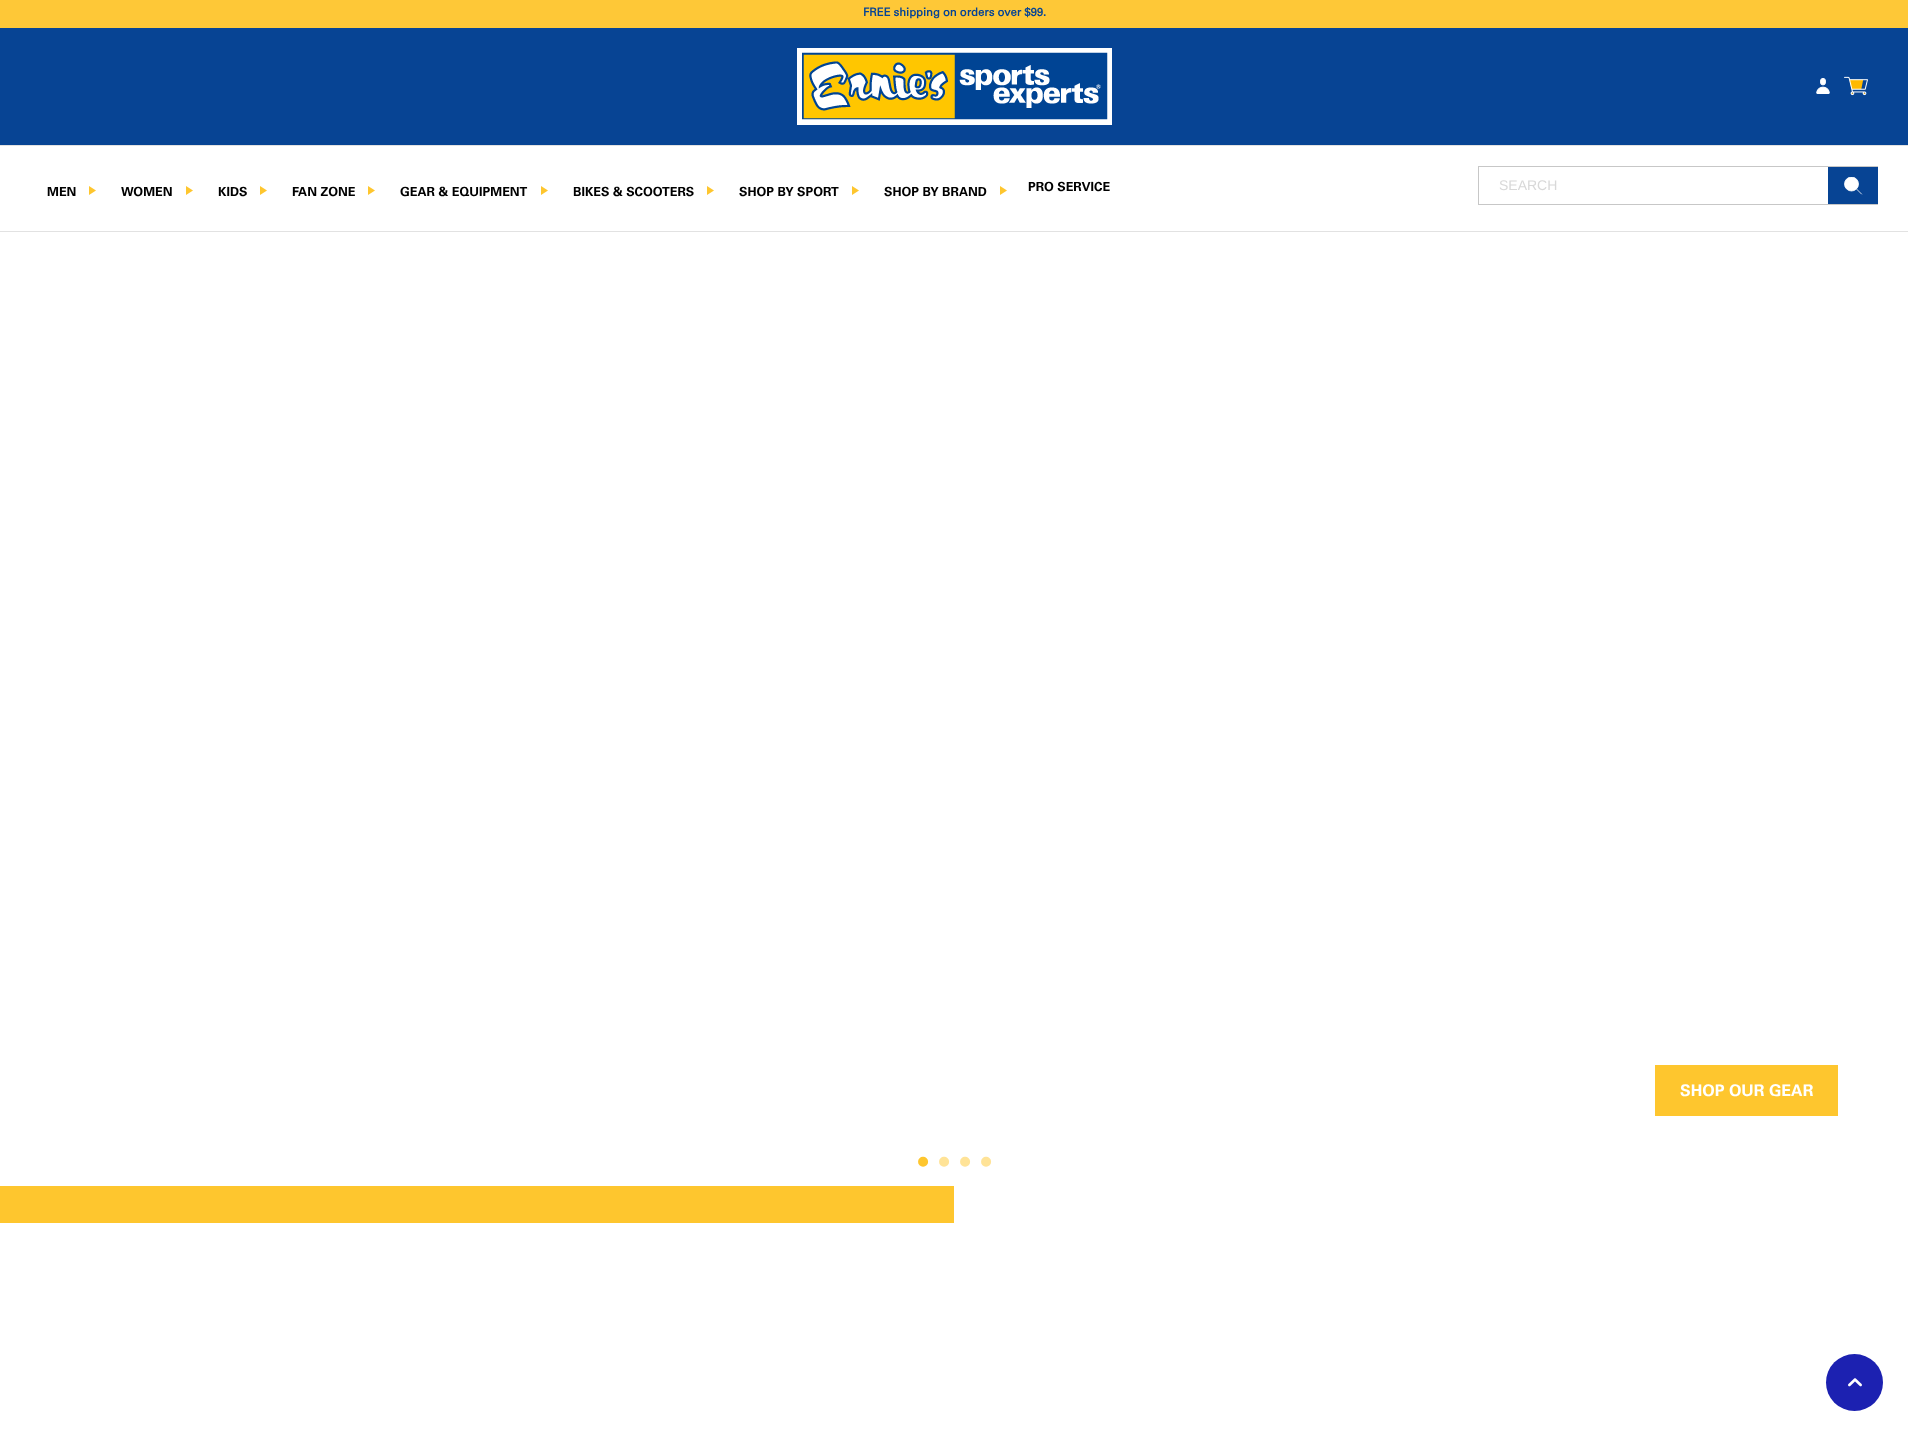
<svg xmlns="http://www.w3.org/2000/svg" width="1908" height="1446">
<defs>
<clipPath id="clip1"><rect x="1844" y="177" width="18" height="18"/></clipPath>
</defs>
<rect width="100%" height="100%" fill="#fff"/>
<rect width="1908" height="28" fill="#fec837"/>
<text x="863" y="16" style="font-family:'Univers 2';font-size:11.25px;font-weight:bold;fill:#074494">FREE shipping on orders over $99.</text>
<rect y="28" width="1908" height="117" fill="#074494"/>
<rect y="145" width="1908" height="1" fill="#e2e2e2"/>
<image x="797" y="48" width="315" height="77" href="media/1.png"/>
<image x="1816" y="78" width="14" height="16" href="media/2.png"/>
<image x="1844" y="76" width="24" height="20" href="media/3.png"/>
<rect y="231" width="1908" height="1" fill="#e2e2e2"/>
<text x="47" y="196" style="font-family:Univers;font-size:12.6px;font-weight:bold;fill:#000">MEN</text>
<path d="M96 190.5l-7 4.5v-9z" fill="#fec62e"/>
<text x="121" y="196" style="font-family:Univers;font-size:12.6px;font-weight:bold;fill:#000">WOMEN</text>
<path d="M193 190.5l-7 4.5v-9z" fill="#fec62e"/>
<text x="218" y="196" style="font-family:Univers;font-size:12.6px;font-weight:bold;fill:#000">KIDS</text>
<path d="M267 190.5l-7 4.5v-9z" fill="#fec62e"/>
<text x="292" y="196" style="font-family:Univers;font-size:12.6px;font-weight:bold;fill:#000">FAN ZONE</text>
<path d="M375 190.5l-7 4.5v-9z" fill="#fec62e"/>
<text x="400" y="196" style="font-family:Univers;font-size:12.6px;font-weight:bold;fill:#000">GEAR &amp; EQUIPMENT</text>
<path d="M548 190.5l-7 4.5v-9z" fill="#fec62e"/>
<text x="573" y="196" style="font-family:Univers;font-size:12.6px;font-weight:bold;fill:#000">BIKES &amp; SCOOTERS</text>
<path d="M714 190.5l-7 4.5v-9z" fill="#fec62e"/>
<text x="739" y="196" style="font-family:Univers;font-size:12.6px;font-weight:bold;fill:#000">SHOP BY SPORT</text>
<path d="M859 190.5l-7 4.5v-9z" fill="#fec62e"/>
<text x="884" y="196" style="font-family:Univers;font-size:12.6px;font-weight:bold;fill:#000">SHOP BY BRAND</text>
<path d="M1007 190.5l-7 4.5v-9z" fill="#fec62e"/>
<text x="1028" y="191" style="font-family:Univers;font-size:12.6px;font-weight:bold;fill:#000">PRO SERVICE</text>
<rect x="1478.5" y="166.5" width="399" height="38" fill="none" stroke="#c7c7c7"/>
<text x="1499" y="190" style="font-family:Liberation Sans;font-size:14px;fill:#d8d8d8">SEARCH</text>
<rect x="1828" y="167" width="50" height="37" fill="#074494"/>
<circle cx="1851.5" cy="184" r="7" fill="#fff"/>
<g clip-path="url(#clip1)">
<circle cx="1851.5" cy="184" r="7" fill="none" stroke="#fff" stroke-width="0.8"/>
</g>
<path d="M1861.5 194l-6-6" fill="none" stroke="#fff" stroke-width="0.8" stroke-linecap="round" stroke-linejoin="round"/>
<rect x="1655" y="1065" width="183" height="51" fill="#fec62e"/>
<text x="1680" y="1096" style="font-family:Univers;font-size:16px;font-weight:bold;fill:#fff">SHOP OUR GEAR</text>
<text x="912" y="1174" style="font-family:Liberation Mono;font-size:37px;fill:#fec62e">•</text>
<text x="933" y="1174" style="font-family:Liberation Mono;font-size:37px;fill:#ffe397">•</text>
<text x="954" y="1174" style="font-family:Liberation Mono;font-size:37px;fill:#ffe397">•</text>
<text x="975" y="1174" style="font-family:Liberation Mono;font-size:37px;fill:#ffe397">•</text>
<rect y="1186" width="954" height="37" fill="#fec62e"/>
<circle cx="1854.5" cy="1382.5" r="28.5" fill="#1c21b1"/>
<image x="1848" y="1378" width="14" height="9" href="media/4.png"/>
</svg>
